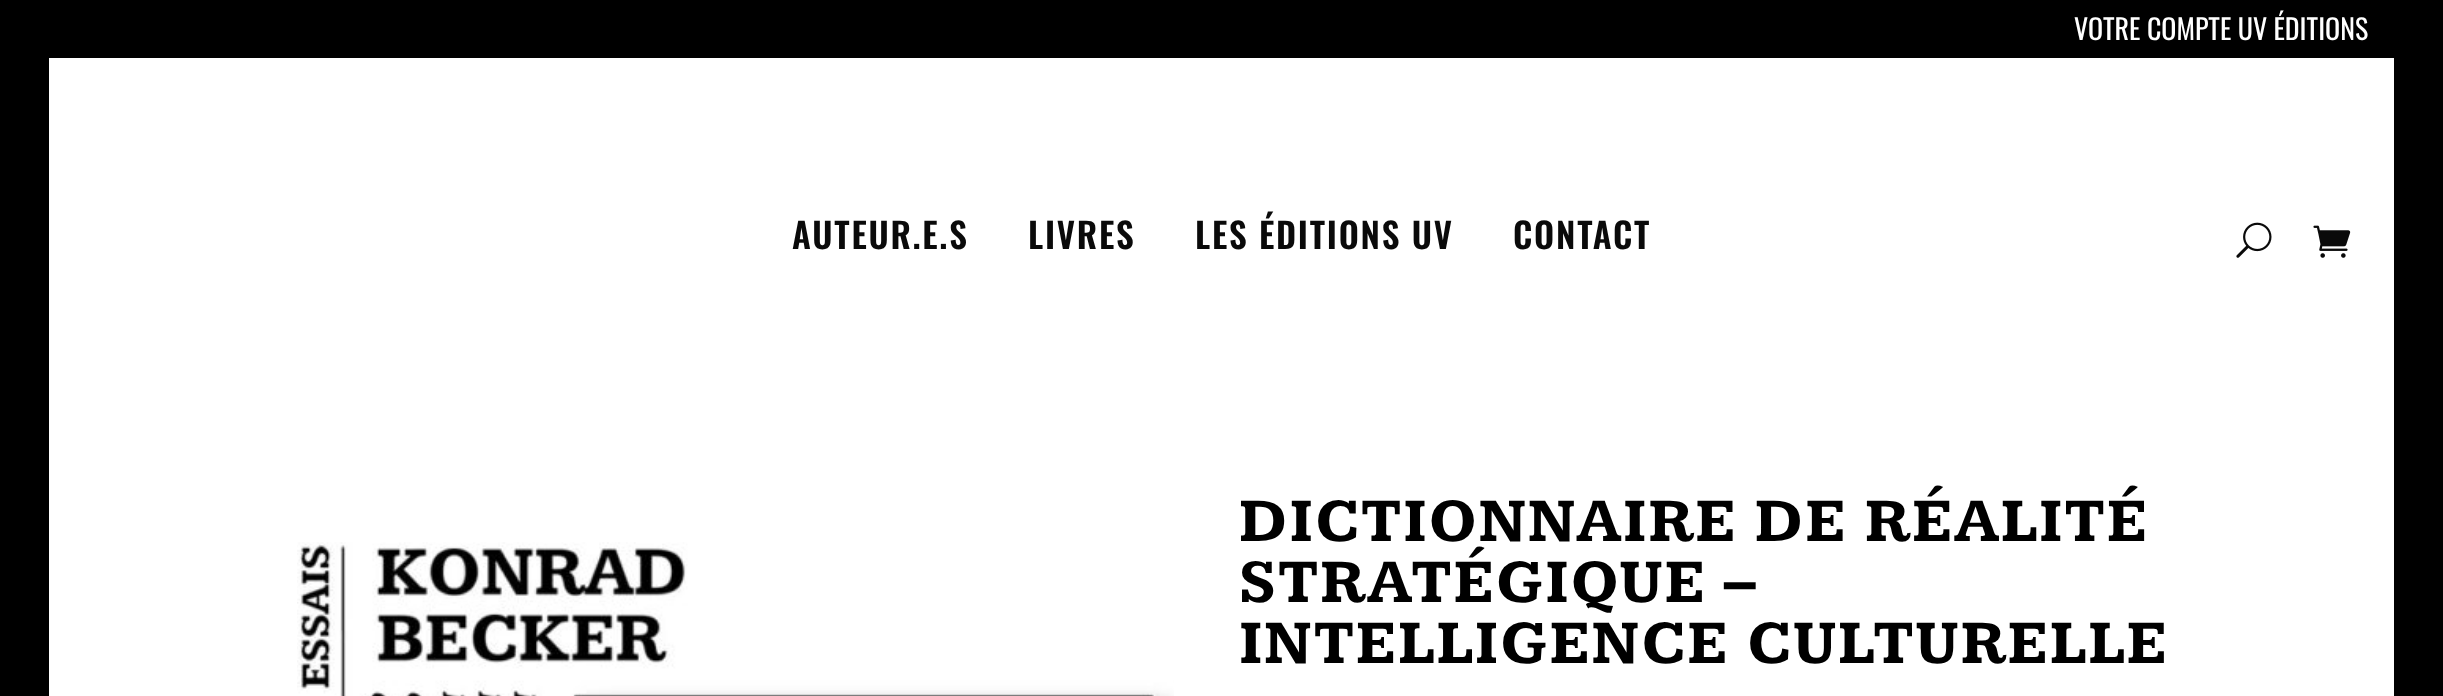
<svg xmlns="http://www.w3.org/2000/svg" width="2443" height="696">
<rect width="100%" height="100%" fill="#fff"/>
<rect x="49" width="2345" height="58" fill="#000"/>
<text x="2074" y="40" style="font-family:Oswald;font-size:28px;fill:#fff">VOTRE COMPTE UV ÉDITIONS</text>
<text x="792" y="249" style="font-family:Oswald;font-size:35px;font-weight:600;letter-spacing:1.75px;fill:#0a0a0a">AUTEUR.E.S</text>
<text x="1028" y="249" style="font-family:Oswald;font-size:35px;font-weight:600;letter-spacing:1.75px;fill:#0a0a0a">LIVRES</text>
<text x="1195" y="249" style="font-family:Oswald;font-size:35px;font-weight:600;letter-spacing:1.75px;fill:#0a0a0a">LES ÉDITIONS UV</text>
<text x="1513" y="249" style="font-family:Oswald;font-size:35px;font-weight:600;letter-spacing:1.75px;fill:#0a0a0a">CONTACT</text>
<image x="2236" y="222" width="36" height="36" href="media/1.png"/>
<image x="2313" y="225" width="38" height="33" href="media/2.png"/>
<rect width="49" height="696" fill="#000"/>
<image x="297" y="542" width="877" height="154" href="media/3.png"/>
<text x="1239" y="541" style="font-family:Kameron;font-size:63px;font-weight:bold;letter-spacing:1.75px;fill:#000">DICTIONNAIRE DE RÉALITÉ</text>
<text x="1239" y="602" style="font-family:Kameron;font-size:63px;font-weight:bold;letter-spacing:1.75px;fill:#000">STRATÉGIQUE –</text>
<text x="1239" y="663" style="font-family:Kameron;font-size:63px;font-weight:bold;letter-spacing:1.75px;fill:#000">INTELLIGENCE CULTURELLE</text>
<rect x="2394" width="49" height="696" fill="#000"/>
</svg>
